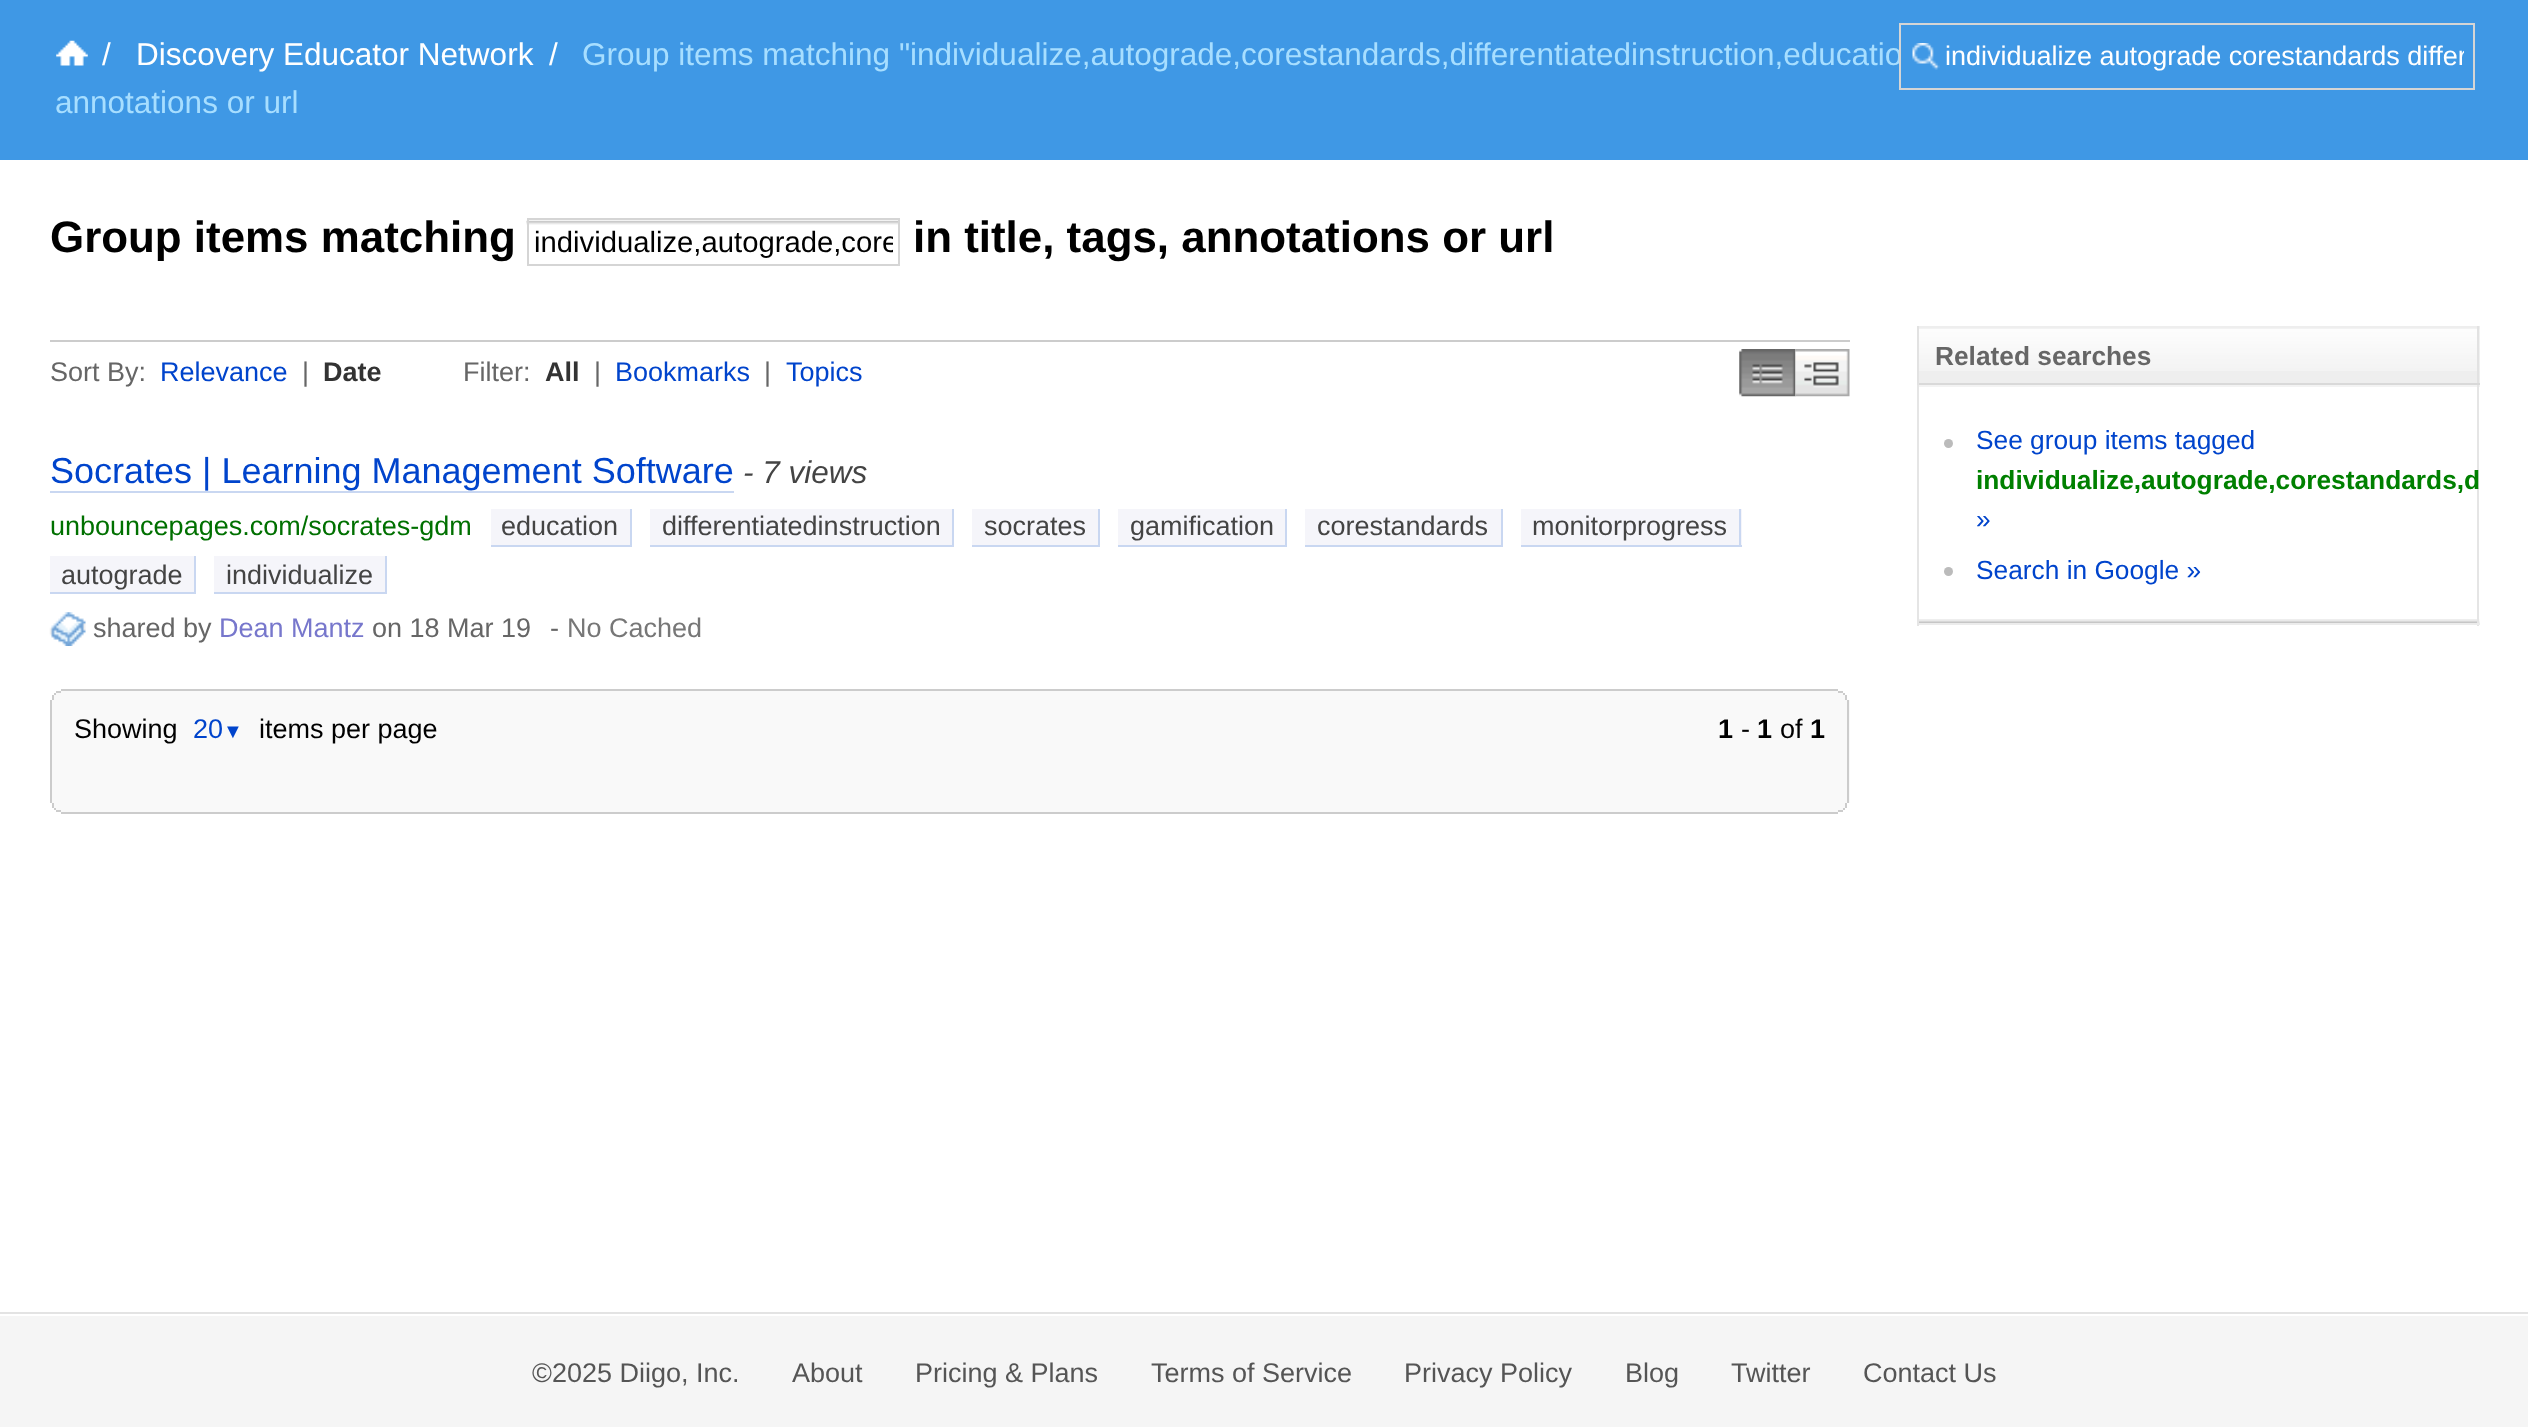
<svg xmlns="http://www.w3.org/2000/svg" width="2528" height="1428">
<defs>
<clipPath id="clip1"><rect x="1946" y="41" width="518" height="31"/></clipPath>
<clipPath id="clip2"><rect x="533" y="225" width="360" height="34"/></clipPath>
</defs>
<rect width="100%" height="100%" fill="#fff"/>
<rect width="2528" height="160" fill="#3f98e5"/>
<image x="56" y="40" width="32" height="26" href="media/1.png"/>
<text x="102" y="65" style="font-family:Liberation Sans;font-size:31.5px;fill:#fff">/</text>
<text x="136" y="65" style="font-family:Liberation Sans;font-size:31.5px;fill:#fff">Discovery Educator Network</text>
<text x="549" y="65" style="font-family:Liberation Sans;font-size:31.5px;fill:#fff">/</text>
<text x="582" y="65" style="font-family:Liberation Sans;font-size:31.5px;fill:#a7deff">Group items matching "individualize,autograde,corestandards,differentiatedinstruction,educatio</text>
<rect x="1901" y="55" width="1" height="3" fill="#3f98e5"/>
<image x="1912" y="43" width="28" height="27" href="media/2.png"/>
<rect x="1900" y="24" width="574" height="65" fill="none" stroke="#d5d5d5" stroke-width="2"/>
<g clip-path="url(#clip1)">
<text x="1945" y="65" style="font-family:Liberation Sans;font-size:27px;fill:#fff">individualize autograde corestandards differ</text>
</g>
<text x="55" y="113" style="font-family:Liberation Sans;font-size:31.5px;fill:#a7deff">annotations or url</text>
<text x="50" y="252" style="font-family:Liberation Sans;font-size:43.9px;font-weight:bold;fill:#000">Group items matching</text>
<image x="526" y="220" width="372" height="5" href="media/3.png"/>
<rect x="528" y="219" width="371" height="46" fill="none" stroke="#d5d5d5" stroke-width="2"/>
<g clip-path="url(#clip2)">
<text x="534" y="252" style="font-family:Liberation Sans;font-size:29.25px;fill:#000">individualize,autograde,core</text>
</g>
<text x="913" y="252" style="font-family:Liberation Sans;font-size:43.9px;font-weight:bold;fill:#000">in title, tags, annotations or url</text>
<rect x="50" y="340" width="1800" height="2" fill="#ccc"/>
<text x="50" y="381" style="font-family:Liberation Sans;font-size:27px;fill:#666">Sort By:</text>
<text x="160" y="381" style="font-family:Liberation Sans;font-size:27px;fill:#04c">Relevance</text>
<text x="302" y="381" style="font-family:Liberation Sans;font-size:27px;fill:#666">|</text>
<text x="323" y="381" style="font-family:Liberation Sans;font-size:27px;font-weight:bold;fill:#333">Date</text>
<text x="463" y="381" style="font-family:Liberation Sans;font-size:27px;fill:#666">Filter:</text>
<text x="545" y="381" style="font-family:Liberation Sans;font-size:27px;font-weight:bold;fill:#333">All</text>
<text x="594" y="381" style="font-family:Liberation Sans;font-size:27px;fill:#666">|</text>
<text x="615" y="381" style="font-family:Liberation Sans;font-size:27px;fill:#04c">Bookmarks</text>
<text x="764" y="381" style="font-family:Liberation Sans;font-size:27px;fill:#666">|</text>
<text x="786" y="381" style="font-family:Liberation Sans;font-size:27px;fill:#04c">Topics</text>
<image x="1739" y="349" width="57" height="48" href="media/4.png"/>
<image x="1795" y="349" width="55" height="48" href="media/5.png"/>
<text x="50" y="483" style="font-family:Liberation Sans;font-size:36px;fill:#04c">Socrates | Learning Management Software</text>
<rect x="50" y="491" width="684" height="2" fill="#c9d7f1"/>
<text x="743" y="483" style="font-family:Liberation Sans;font-size:31.5px;font-style:italic;fill:#444">- 7 views</text>
<text x="50" y="535" style="font-family:Liberation Sans;font-size:27px;fill:#007000">unbouncepages.com/socrates-gdm</text>
<rect x="491" y="509" width="139" height="36" fill="#f5f5fa"/>
<text x="501" y="535" style="font-family:Liberation Sans;font-size:27px;fill:#444">education</text>
<rect x="630" y="509" width="2" height="38" fill="#c9d7f1"/>
<rect x="491" y="545" width="141" height="2" fill="#c9d7f1"/>
<rect x="650" y="509" width="302" height="36" fill="#f5f5fa"/>
<text x="662" y="535" style="font-family:Liberation Sans;font-size:27px;fill:#444">differentiatedinstruction</text>
<rect x="952" y="509" width="2" height="38" fill="#c9d7f1"/>
<rect x="650" y="545" width="304" height="2" fill="#c9d7f1"/>
<rect x="972" y="509" width="126" height="36" fill="#f5f5fa"/>
<text x="984" y="535" style="font-family:Liberation Sans;font-size:27px;fill:#444">socrates</text>
<rect x="1098" y="509" width="2" height="38" fill="#c9d7f1"/>
<rect x="972" y="545" width="128" height="2" fill="#c9d7f1"/>
<rect x="1118" y="509" width="167" height="36" fill="#f5f5fa"/>
<text x="1130" y="535" style="font-family:Liberation Sans;font-size:27px;fill:#444">gamification</text>
<rect x="1285" y="509" width="2" height="38" fill="#c9d7f1"/>
<rect x="1118" y="545" width="169" height="2" fill="#c9d7f1"/>
<rect x="1305" y="509" width="196" height="36" fill="#f5f5fa"/>
<text x="1317" y="535" style="font-family:Liberation Sans;font-size:27px;fill:#444">corestandards</text>
<rect x="1501" y="509" width="2" height="38" fill="#c9d7f1"/>
<rect x="1305" y="545" width="198" height="2" fill="#c9d7f1"/>
<rect x="1521" y="509" width="221" height="36" fill="#f5f5fa"/>
<text x="1532" y="535" style="font-family:Liberation Sans;font-size:27px;fill:#444">monitorprogress</text>
<rect x="1739" y="509" width="2" height="38" fill="#c9d7f1"/>
<rect x="1521" y="545" width="221" height="2" fill="#c9d7f1"/>
<rect x="50" y="556" width="144" height="36" fill="#f5f5fa"/>
<text x="61" y="584" style="font-family:Liberation Sans;font-size:27px;fill:#444">autograde</text>
<rect x="194" y="556" width="2" height="38" fill="#c9d7f1"/>
<rect x="50" y="592" width="146" height="2" fill="#c9d7f1"/>
<rect x="214" y="556" width="171" height="36" fill="#f5f5fa"/>
<text x="226" y="584" style="font-family:Liberation Sans;font-size:27px;fill:#444">individualize</text>
<rect x="385" y="556" width="2" height="38" fill="#c9d7f1"/>
<rect x="214" y="592" width="173" height="2" fill="#c9d7f1"/>
<image x="49" y="612" width="37" height="34" href="media/6.png"/>
<text x="93" y="637" style="font-family:Liberation Sans;font-size:27px;fill:#666">shared by</text>
<text x="219" y="637" style="font-family:Liberation Sans;font-size:27px;fill:#77c">Dean Mantz</text>
<text x="372" y="637" style="font-family:Liberation Sans;font-size:27px;fill:#666">on 18 Mar 19</text>
<text x="550" y="637" style="font-family:Liberation Sans;font-size:27px;fill:#666">-</text>
<text x="567" y="637" style="font-family:Liberation Sans;font-size:27px;fill:#777">No Cached</text>
<rect x="61" y="689" width="1777" height="2" fill="#ccc"/>
<rect x="56" y="691" width="1787" height="2" fill="#f9f9f9"/>
<rect x="1838" y="691" width="5" height="2" fill="#ccc"/>
<rect x="56" y="691" width="5" height="2" fill="#ccc"/>
<rect x="54" y="693" width="1791" height="2" fill="#f9f9f9"/>
<rect x="1843" y="693" width="2" height="2" fill="#ccc"/>
<rect x="54" y="693" width="2" height="2" fill="#ccc"/>
<rect x="52" y="695" width="1795" height="5" fill="#f9f9f9"/>
<rect x="1845" y="695" width="2" height="5" fill="#ccc"/>
<rect x="52" y="695" width="2" height="5" fill="#ccc"/>
<rect x="52" y="700" width="1798" height="103" fill="#f9f9f9"/>
<rect x="1847" y="700" width="2" height="103" fill="#ccc"/>
<rect x="50" y="700" width="2" height="103" fill="#ccc"/>
<text x="74" y="738" style="font-family:Liberation Sans;font-size:27px;fill:#000">Showing</text>
<text x="193" y="738" style="font-family:Liberation Sans;font-size:27px;fill:#04c">20</text>
<text x="223" y="738" style="font-family:Liberation Sans;font-size:20px;font-weight:bold;fill:#04c">▼</text>
<text x="259" y="738" style="font-family:Liberation Sans;font-size:27px;fill:#000">items per page</text>
<text x="1718" y="738" style="font-family:Liberation Sans;font-size:27px;font-weight:bold;fill:#000">1</text>
<text x="1741" y="738" style="font-family:Liberation Sans;font-size:27px;fill:#000">-</text>
<text x="1757" y="738" style="font-family:Liberation Sans;font-size:27px;font-weight:bold;fill:#000">1</text>
<text x="1780" y="738" style="font-family:Liberation Sans;font-size:27px;fill:#000">of</text>
<text x="1810" y="738" style="font-family:Liberation Sans;font-size:27px;font-weight:bold;fill:#000">1</text>
<rect x="52" y="803" width="1795" height="5" fill="#f9f9f9"/>
<rect x="1845" y="803" width="2" height="5" fill="#ccc"/>
<rect x="52" y="803" width="2" height="5" fill="#ccc"/>
<rect x="54" y="808" width="1791" height="2" fill="#f9f9f9"/>
<rect x="1843" y="808" width="2" height="2" fill="#ccc"/>
<rect x="54" y="808" width="2" height="2" fill="#ccc"/>
<rect x="56" y="810" width="1787" height="2" fill="#f9f9f9"/>
<rect x="1838" y="810" width="5" height="2" fill="#ccc"/>
<rect x="56" y="810" width="5" height="2" fill="#ccc"/>
<rect x="61" y="812" width="1777" height="2" fill="#ccc"/>
<rect x="1919" y="326" width="561" height="57" fill="#eee"/>
<image x="1919" y="328" width="561" height="43" href="media/7.png"/>
<rect x="2477" y="326" width="2" height="59" fill="#e2e2e2"/>
<rect x="1917" y="383" width="563" height="2" fill="#d9d9d9"/>
<rect x="1917" y="326" width="2" height="59" fill="#e2e2e2"/>
<text x="1935" y="365" style="font-family:Liberation Sans;font-size:26.3px;font-weight:bold;fill:#666">Related searches</text>
<image x="1919" y="619" width="561" height="4" href="media/8.png"/>
<rect x="1917" y="385" width="563" height="2" fill="#f3f3f3"/>
<rect x="2477" y="385" width="2" height="241" fill="#e5e5e5"/>
<rect x="1917" y="623" width="563" height="2" fill="#ececec"/>
<rect x="1917" y="385" width="2" height="241" fill="#e5e5e5"/>
<circle cx="1948.5" cy="443.5" r="4.5" fill="#bbb"/>
<text x="1976" y="449" style="font-family:Liberation Sans;font-size:26.3px;fill:#04c">See group items tagged</text>
<text x="1976" y="489" style="font-family:Liberation Sans;font-size:26.3px;font-weight:bold;fill:#008000">individualize,autograde,corestandards,d</text>
<text x="1976" y="528" style="font-family:Liberation Sans;font-size:26.3px;fill:#04c">»</text>
<circle cx="1948.5" cy="571.5" r="4.5" fill="#bbb"/>
<text x="1976" y="579" style="font-family:Liberation Sans;font-size:26.3px;fill:#04c">Search in Google »</text>
<rect y="1316" width="2528" height="111" fill="#f5f5f5"/>
<rect y="1312" width="2528" height="2" fill="#e3e3e3"/>
<text x="532" y="1382" style="font-family:Liberation Sans;font-size:27px;fill:#555">©2025 Diigo, Inc.</text>
<text x="792" y="1382" style="font-family:Liberation Sans;font-size:27px;fill:#555">About</text>
<text x="915" y="1382" style="font-family:Liberation Sans;font-size:27px;fill:#555">Pricing &amp; Plans</text>
<text x="1151" y="1382" style="font-family:Liberation Sans;font-size:27px;fill:#555">Terms of Service</text>
<text x="1404" y="1382" style="font-family:Liberation Sans;font-size:27px;fill:#555">Privacy Policy</text>
<text x="1625" y="1382" style="font-family:Liberation Sans;font-size:27px;fill:#555">Blog</text>
<text x="1731" y="1382" style="font-family:Liberation Sans;font-size:27px;fill:#555">Twitter</text>
<text x="1863" y="1382" style="font-family:Liberation Sans;font-size:27px;fill:#555">Contact Us</text>
</svg>
